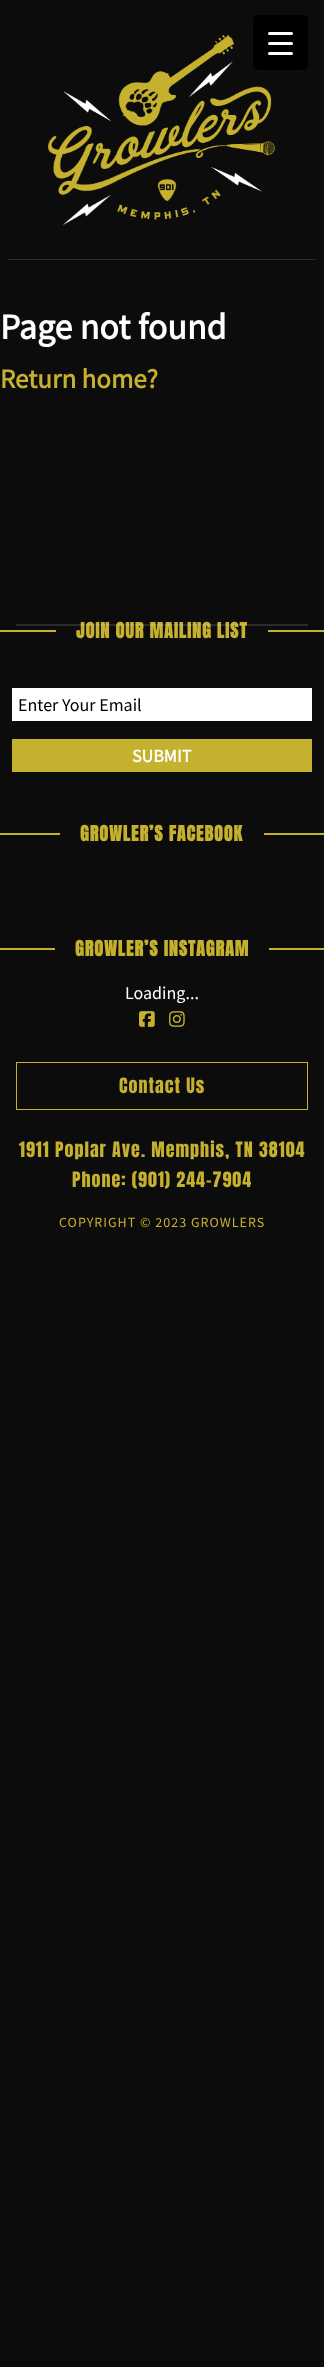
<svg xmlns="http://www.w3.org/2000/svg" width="324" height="2367">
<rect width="100%" height="100%" fill="#0c0c0c"/>
<image x="48" y="34" width="228" height="192" href="media/1.png"/>
<rect x="253" y="15" width="55" height="55" rx="5" fill="#000"/>
<rect x="268" y="42" width="25" height="3" rx="1.5" fill="#fff"/>
<rect x="268" y="32" width="25" height="3" rx="1.5" fill="#fff"/>
<rect x="268" y="52" width="25" height="3" rx="1.5" fill="#fff"/>
<rect x="8" y="259" width="308" height="1" fill="#2c2c2c"/>
<text x="0" y="339" style="font-family:Source Sans Pro;font-size:36px;font-weight:bold;fill:#fff">Page not found</text>
<text x="0" y="388" style="font-family:Source Sans Pro;font-size:27px;font-weight:bold;fill:#c6b12f">Return home?</text>
<rect y="630" width="56" height="2" fill="#c6b12f"/>
<text x="76" y="638" style="font-family:Anton;font-size:18px;font-weight:bold;letter-spacing:1px;fill:#c6b12f">JOIN OUR MAILING LIST</text>
<rect x="268" y="630" width="56" height="2" fill="#c6b12f"/>
<rect x="12" y="688" width="300" height="33" fill="#fff"/>
<text x="18" y="711" style="font-family:Source Sans Pro;font-size:18px;fill:#000">Enter Your Email</text>
<rect x="12" y="739" width="300" height="33" fill="#c6b12f"/>
<text x="132" y="762" style="font-family:Source Sans Pro;font-size:18px;font-weight:bold;fill:#fff">SUBMIT</text>
<rect y="833" width="60" height="2" fill="#c6b12f"/>
<text x="80" y="841" style="font-family:Anton;font-size:18px;font-weight:bold;letter-spacing:1px;fill:#c6b12f">GROWLER’S FACEBOOK</text>
<rect x="264" y="833" width="60" height="2" fill="#c6b12f"/>
<rect y="948" width="55" height="2" fill="#c6b12f"/>
<text x="75" y="956" style="font-family:Anton;font-size:18px;font-weight:bold;letter-spacing:1px;fill:#c6b12f">GROWLER’S INSTAGRAM</text>
<rect x="269" y="948" width="55" height="2" fill="#c6b12f"/>
<text x="125" y="999" style="font-family:Source Sans Pro;font-size:18px;fill:#fff">Loading...</text>
<rect x="16" y="624" width="292" height="2" fill="#ffffff21"/>
<image x="139" y="1011" width="16" height="16" href="media/2.png"/>
<image x="169" y="1011" width="16" height="16" href="media/3.png"/>
<rect x="16.5" y="1062.5" width="291" height="47" fill="none" stroke="#c6b12f"/>
<text x="119" y="1093" style="font-family:Anton;font-size:18px;letter-spacing:1px;fill:#c6b12f">Contact Us</text>
<text x="19" y="1157" style="font-family:Anton;font-size:18px;letter-spacing:1px;fill:#c6b12f">1911 Poplar Ave. Memphis, TN 38104</text>
<text x="72" y="1187" style="font-family:Anton;font-size:18px;letter-spacing:1px;fill:#c6b12f">Phone: (901) 244-7904</text>
<text x="59" y="1227" style="font-family:Source Sans Pro;font-size:14px;letter-spacing:1px;fill:#c6b12f">COPYRIGHT © 2023 GROWLERS</text>
</svg>
